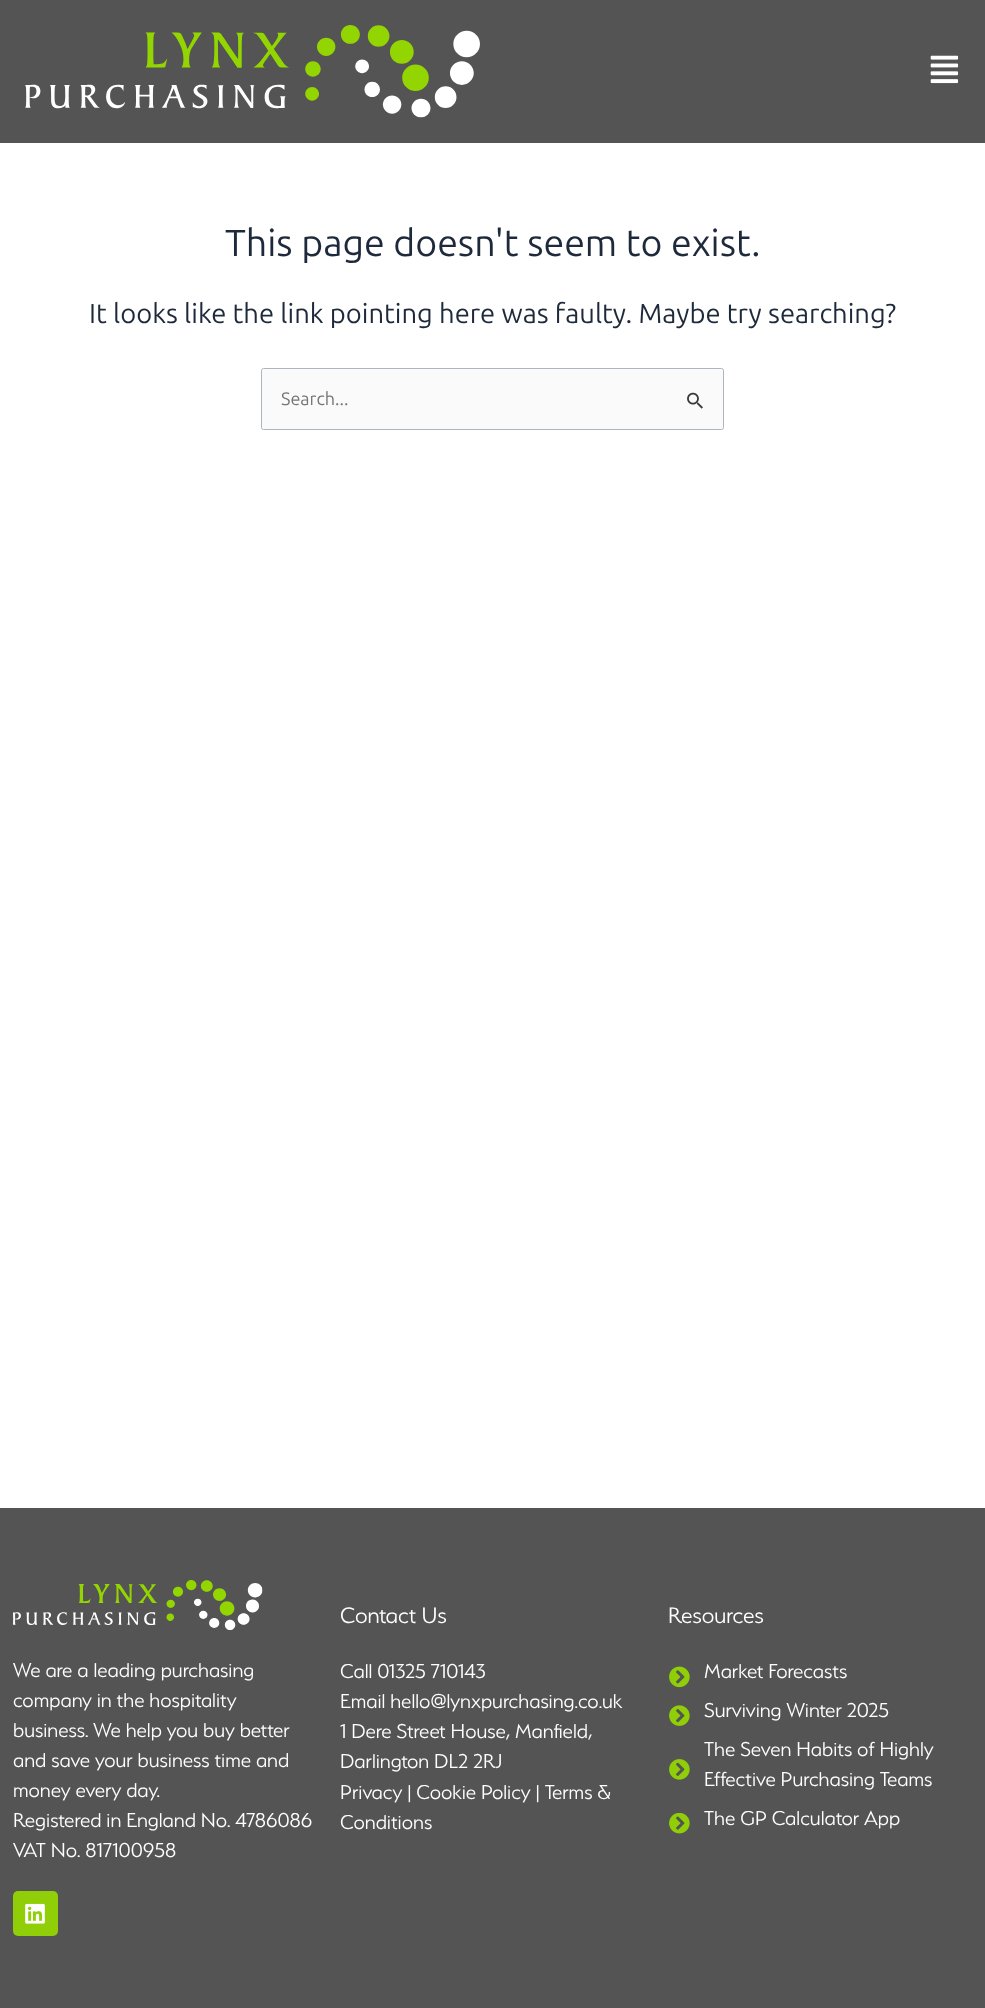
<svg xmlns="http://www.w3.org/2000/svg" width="985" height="2008">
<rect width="100%" height="100%" fill="#fff"/>
<rect width="985" height="143" fill="#555454"/>
<image x="25" y="25" width="455" height="93" href="media/1.png"/>
<image x="930" y="55" width="29" height="29" href="media/2.png"/>
<text x="225" y="256" style="font-family:Ubuntu;font-size:37.5px;fill:#1e293b">This page doesn't seem to exist.</text>
<text x="89" y="323" style="font-family:Ubuntu;font-size:27.35px;fill:#1e293b">It looks like the link pointing here was faulty. Maybe try searching?</text>
<rect x="261.5" y="368.5" width="462" height="61" rx="2" fill="#fafafa" stroke="#adb6be"/>
<text x="281" y="405" style="font-family:Ubuntu;font-size:18px;fill:#757575">Search...</text>
<image x="687" y="392" width="16" height="17" href="media/3.png"/>
<rect y="1508" width="985" height="500" fill="#555454"/>
<image x="13" y="1580" width="250" height="50" href="media/4.png"/>
<text x="13" y="1677" style="font-family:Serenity;font-size:22.5px;font-weight:300;fill:#fff">We are a leading purchasing</text>
<text x="13" y="1707" style="font-family:Serenity;font-size:22.5px;font-weight:300;fill:#fff">company in the hospitality</text>
<text x="13" y="1737" style="font-family:Serenity;font-size:22.5px;font-weight:300;fill:#fff">business. We help you buy better</text>
<text x="13" y="1767" style="font-family:Serenity;font-size:22.5px;font-weight:300;fill:#fff">and save your business time and</text>
<text x="13" y="1797" style="font-family:Serenity;font-size:22.5px;font-weight:300;fill:#fff">money every day.</text>
<text x="13" y="1827" style="font-family:Serenity;font-size:22.5px;font-weight:300;fill:#fff">Registered in England No. 4786086</text>
<text x="13" y="1857" style="font-family:Serenity;font-size:22.5px;font-weight:300;fill:#fff">VAT No. 817100958</text>
<rect x="13" y="1891" width="45" height="45" rx="5" fill="#90ce07"/>
<image x="25" y="1903" width="20" height="21" href="media/5.png"/>
<text x="340" y="1623" style="font-family:Serenity;font-size:25px;font-weight:300;fill:#fff">Contact Us</text>
<text x="340" y="1678" style="font-family:Serenity;font-size:22.5px;font-weight:300;fill:#fff">Call 01325 710143</text>
<text x="340" y="1708" style="font-family:Serenity;font-size:22.5px;font-weight:300;fill:#fff">Email hello@lynxpurchasing.co.uk</text>
<text x="340" y="1738" style="font-family:Serenity;font-size:22.5px;font-weight:300;fill:#fff">1 Dere Street House, Manfield,</text>
<text x="340" y="1768" style="font-family:Serenity;font-size:22.5px;font-weight:300;fill:#fff">Darlington DL2 2RJ</text>
<text x="340" y="1799" style="font-family:Serenity;font-size:22.5px;font-weight:300;fill:#fff">Privacy | Cookie Policy | Terms &amp;</text>
<text x="340" y="1829" style="font-family:Serenity;font-size:22.5px;font-weight:300;fill:#fff">Conditions</text>
<text x="668" y="1623" style="font-family:Serenity;font-size:25px;font-weight:300;fill:#fff">Resources</text>
<image x="669" y="1666" width="21" height="22" href="media/6.png"/>
<text x="704" y="1678" style="font-family:Serenity;font-size:22.5px;font-weight:300;fill:#fff">Market Forecasts</text>
<image x="669" y="1705" width="21" height="21" href="media/7.png"/>
<text x="704" y="1717" style="font-family:Serenity;font-size:22.5px;font-weight:300;fill:#fff">Surviving Winter 2025</text>
<image x="669" y="1759" width="21" height="21" href="media/8.png"/>
<text x="704" y="1756" style="font-family:Serenity;font-size:22.5px;font-weight:300;fill:#fff">The Seven Habits of Highly</text>
<text x="704" y="1786" style="font-family:Serenity;font-size:22.5px;font-weight:300;fill:#fff">Effective Purchasing Teams</text>
<image x="669" y="1813" width="21" height="21" href="media/9.png"/>
<text x="704" y="1825" style="font-family:Serenity;font-size:22.5px;font-weight:300;fill:#fff">The GP Calculator App</text>
</svg>
